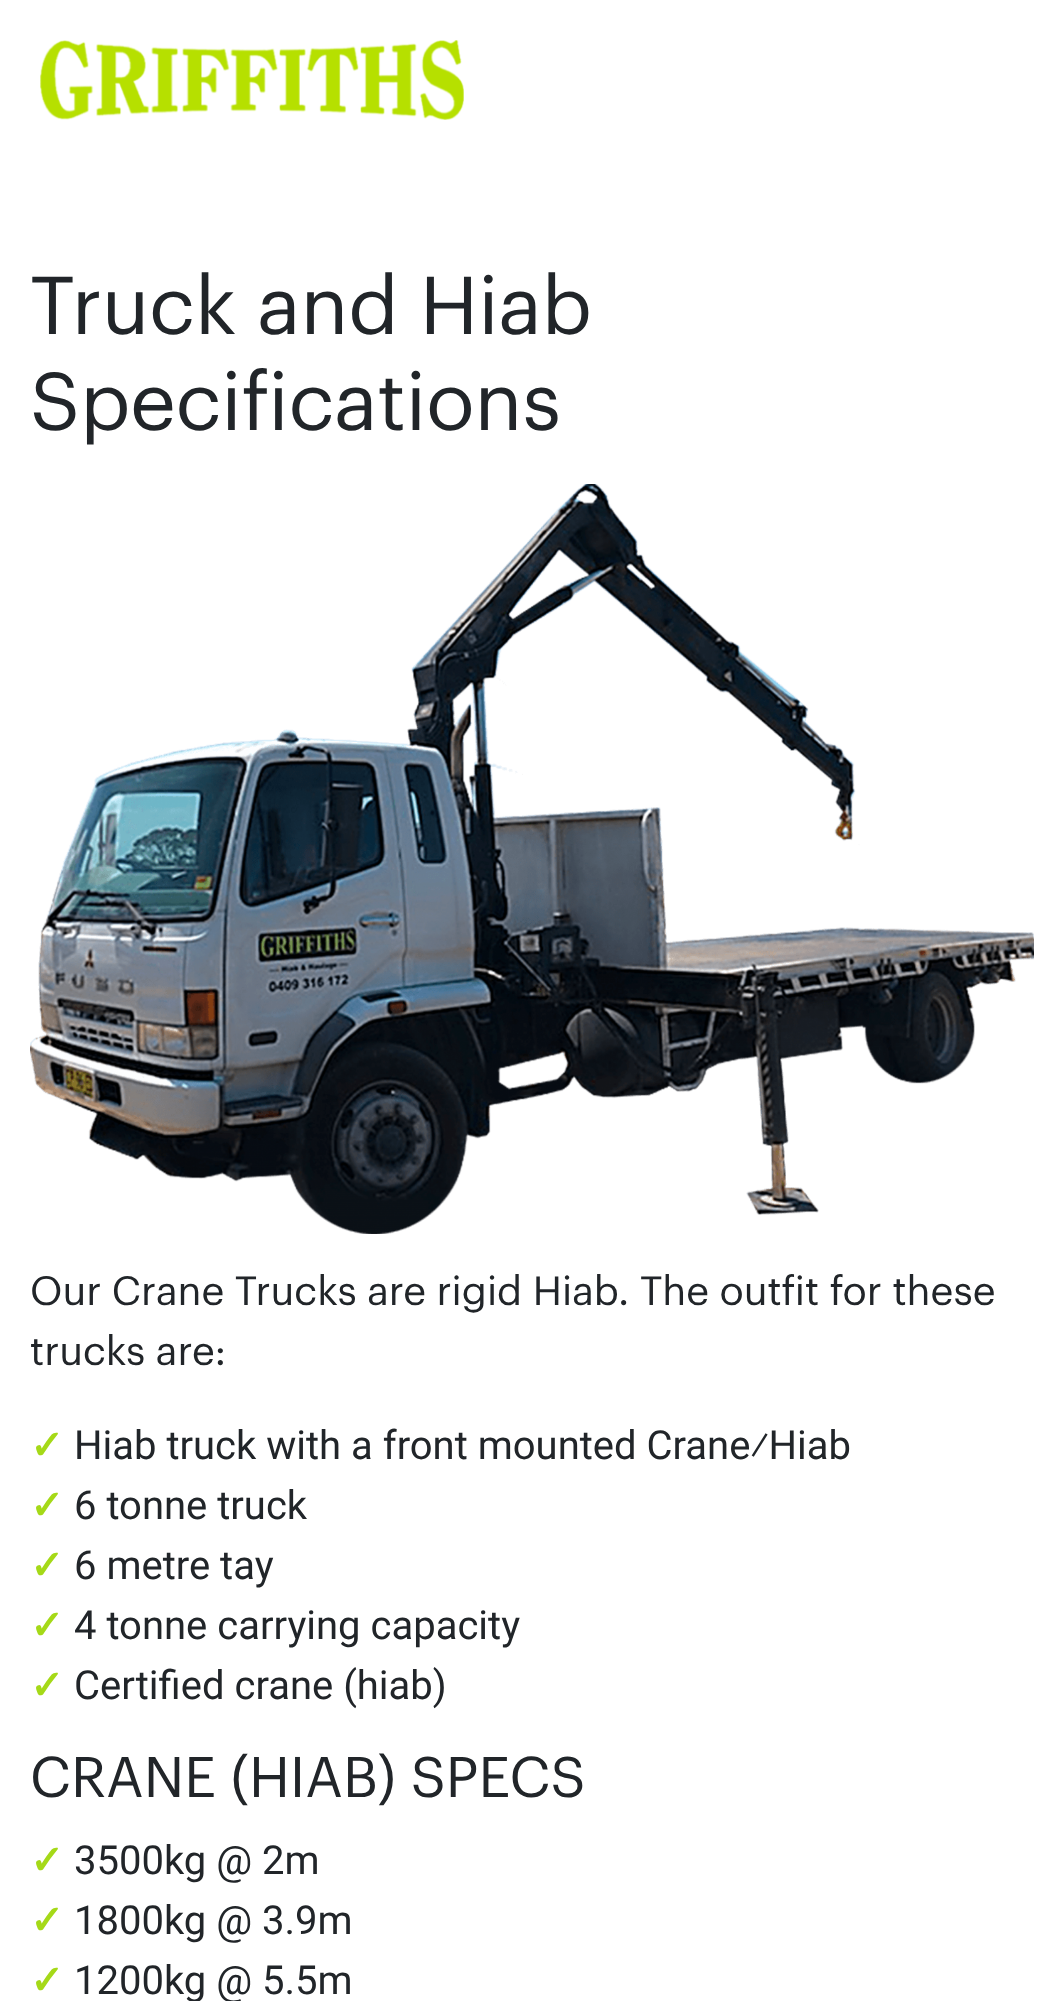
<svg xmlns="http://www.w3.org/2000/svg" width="1064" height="2001">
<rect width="100%" height="100%" fill="#fff"/>
<image x="40" y="40" width="424" height="80" href="media/1.png"/>
<text x="30" y="334" style="font-family:Graphik;font-size:80px;fill:#212529">Truck and Hiab</text>
<text x="30" y="430" style="font-family:Graphik;font-size:80px;fill:#212529">Specifications</text>
<image x="30" y="484" width="1004" height="750" href="media/2.png"/>
<text x="30" y="1305" style="font-family:Graphik;font-size:40px;fill:#212529">Our Crane Trucks are rigid Hiab. The outfit for these</text>
<text x="30" y="1365" style="font-family:Graphik;font-size:40px;fill:#212529">trucks are:</text>
<text x="30" y="1459" style="font-family:DejaVu Sans;font-size:40px;font-weight:bold;fill:#a5d918">✓</text>
<text x="74" y="1459" style="font-family:Roboto;font-size:40px;fill:#212529">Hiab truck with a front mounted Crane⁄Hiab</text>
<text x="30" y="1519" style="font-family:DejaVu Sans;font-size:40px;font-weight:bold;fill:#a5d918">✓</text>
<text x="74" y="1519" style="font-family:Roboto;font-size:40px;fill:#212529">6 tonne truck</text>
<text x="30" y="1579" style="font-family:DejaVu Sans;font-size:40px;font-weight:bold;fill:#a5d918">✓</text>
<text x="74" y="1579" style="font-family:Roboto;font-size:40px;fill:#212529">6 metre tay</text>
<text x="30" y="1639" style="font-family:DejaVu Sans;font-size:40px;font-weight:bold;fill:#a5d918">✓</text>
<text x="74" y="1639" style="font-family:Roboto;font-size:40px;fill:#212529">4 tonne carrying capacity</text>
<text x="30" y="1699" style="font-family:DejaVu Sans;font-size:40px;font-weight:bold;fill:#a5d918">✓</text>
<text x="74" y="1699" style="font-family:Roboto;font-size:40px;fill:#212529">Certified crane (hiab)</text>
<text x="30" y="1797" style="font-family:Graphik;font-size:56px;fill:#212529">CRANE (HIAB) SPECS</text>
<text x="30" y="1874" style="font-family:DejaVu Sans;font-size:40px;font-weight:bold;fill:#a5d918">✓</text>
<text x="74" y="1874" style="font-family:Roboto;font-size:40px;fill:#212529">3500kg @ 2m</text>
<text x="30" y="1934" style="font-family:DejaVu Sans;font-size:40px;font-weight:bold;fill:#a5d918">✓</text>
<text x="74" y="1934" style="font-family:Roboto;font-size:40px;fill:#212529">1800kg @ 3.9m</text>
<text x="30" y="1994" style="font-family:DejaVu Sans;font-size:40px;font-weight:bold;fill:#a5d918">✓</text>
<text x="74" y="1994" style="font-family:Roboto;font-size:40px;fill:#212529">1200kg @ 5.5m</text>
</svg>
